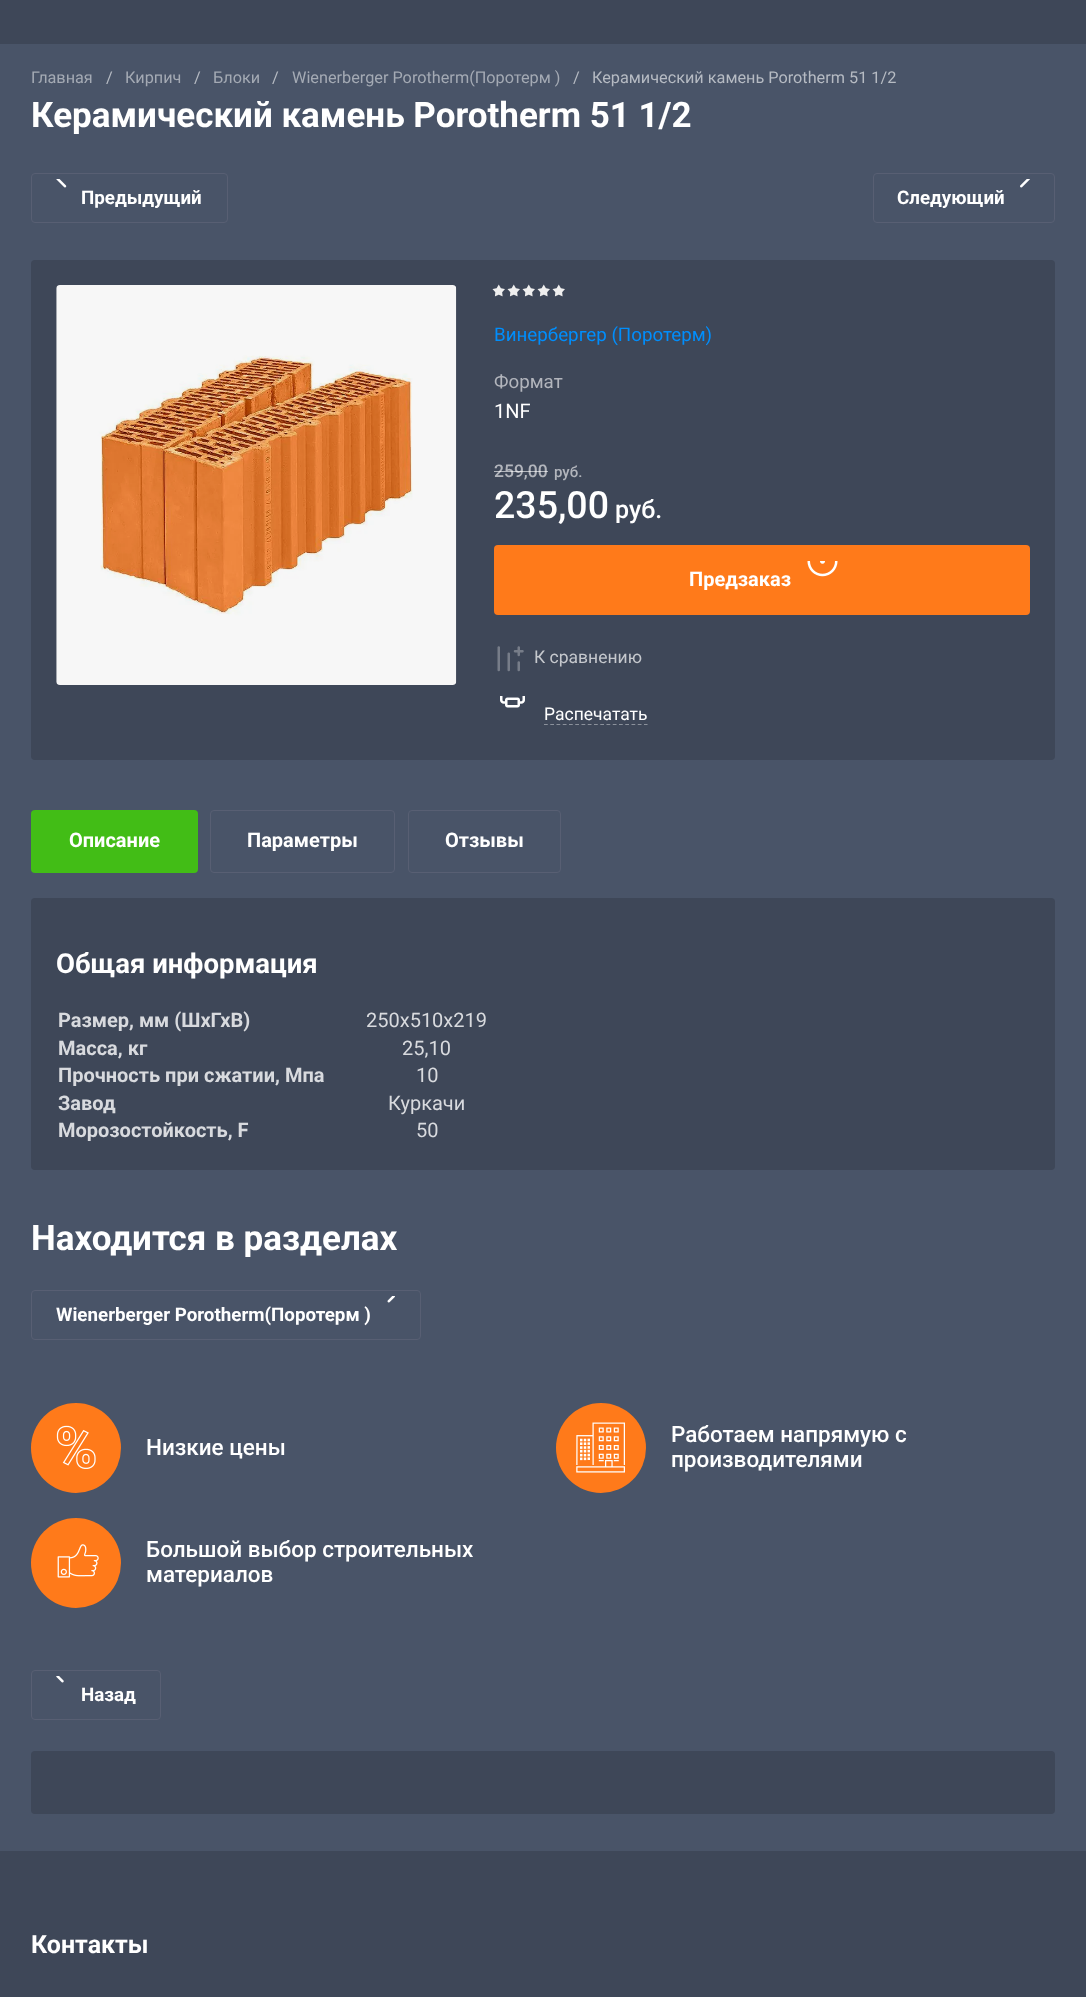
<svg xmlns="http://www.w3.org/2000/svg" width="1086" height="1997">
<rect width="100%" height="100%" fill="#495468"/>
<rect width="1086" height="44" fill="#3e4758"/>
<text x="31" y="83" style="font-family:Roboto;font-size:16.25px;fill:#a4aab4">Главная</text>
<text x="106" y="83" style="font-family:Roboto;font-size:16.25px;fill:#b6bbc3">/</text>
<text x="125" y="83" style="font-family:Roboto;font-size:16.25px;fill:#a4aab4">Кирпич</text>
<text x="194" y="83" style="font-family:Roboto;font-size:16.25px;fill:#b6bbc3">/</text>
<text x="213" y="83" style="font-family:Roboto;font-size:16.25px;fill:#a4aab4">Блоки</text>
<text x="272" y="83" style="font-family:Roboto;font-size:16.25px;fill:#b6bbc3">/</text>
<text x="292" y="83" style="font-family:Roboto;font-size:16.25px;fill:#a4aab4">Wienerberger Porotherm(Поротерм )</text>
<text x="573" y="83" style="font-family:Roboto;font-size:16.25px;fill:#b6bbc3">/</text>
<text x="592" y="83" style="font-family:Roboto;font-size:16.25px;fill:#b6bbc3">Керамический камень Porotherm 51 1/2</text>
<text x="31" y="127" style="font-family:Roboto;font-size:35px;font-weight:bold;fill:#fff">Керамический камень Porotherm 51 1/2</text>
<rect x="31.5" y="173.5" width="196" height="49" rx="3.5" fill="none" stroke="#585f73"/>
<image x="56" y="179" width="11" height="9" href="media/1.png"/>
<text x="81" y="204" style="font-family:Roboto;font-size:18.75px;font-weight:bold;fill:#fff">Предыдущий</text>
<rect x="873.5" y="173.5" width="181" height="49" rx="3.5" fill="none" stroke="#585f73"/>
<image x="1020" y="179" width="10" height="9" href="media/2.png"/>
<text x="897" y="204" style="font-family:Roboto;font-size:18.75px;font-weight:bold;fill:#fff">Следующий</text>
<rect x="31" y="260" width="1024" height="500" rx="4" fill="#3e4758"/>
<image x="56" y="285" width="401" height="400" href="media/3.png"/>
<rect x="56" y="285" width="400" height="400" fill="#00000008"/>
<image x="492" y="284" width="73" height="13" href="media/4.png"/>
<text x="494" y="341" style="font-family:Roboto;font-size:18.75px;fill:#008efc">Винербергер (Поротерм)</text>
<text x="494" y="388" style="font-family:Roboto;font-size:18.75px;fill:#b2b5bc">Формат</text>
<text x="494" y="418" style="font-family:Roboto;font-size:20px;fill:#fff">1NF</text>
<text x="494" y="477" style="font-family:Roboto;font-size:17.5px;font-weight:500;fill:#b2b5bc">259,00</text>
<rect x="494" y="471" width="54" height="1" fill="#ffffff99"/>
<text x="554" y="477" style="font-family:Roboto;font-size:15px;font-weight:500;fill:#b2b5bc">руб.</text>
<text x="494" y="518" style="font-family:Roboto;font-size:37.5px;font-weight:500;fill:#fff">235,00</text>
<text x="615" y="518" style="font-family:Roboto;font-size:25px;font-weight:500;fill:#fff">руб.</text>
<rect x="494" y="545" width="536" height="70" rx="4" fill="#ff7a1a"/>
<image x="807" y="561" width="31" height="16" href="media/5.png"/>
<text x="689" y="586" style="font-family:Roboto;font-size:20px;font-weight:bold;fill:#fff">Предзаказ</text>
<image x="497" y="646" width="27" height="26" href="media/6.png"/>
<text x="534" y="663" style="font-family:Roboto;font-size:17.5px;fill:#c5c8cd">К сравнению</text>
<image x="500" y="696" width="25" height="12" href="media/7.png"/>
<text x="544" y="720" style="font-family:Roboto;font-size:17.5px;fill:#fff">Распечатать</text>
<path d="M544 724.5h103.5" fill="none" stroke="#8b919b" stroke-width="1.2" stroke-dasharray="3.75 2.5"/>
<rect x="31" y="810" width="167" height="63" rx="4" fill="#42bd16"/>
<text x="69" y="847" style="font-family:Roboto;font-size:20px;font-weight:bold;fill:#fff">Описание</text>
<rect x="210.5" y="810.5" width="184" height="62" rx="3.5" fill="none" stroke="#585f73"/>
<text x="247" y="847" style="font-family:Roboto;font-size:20px;font-weight:bold;fill:#fff">Параметры</text>
<rect x="408.5" y="810.5" width="152" height="62" rx="3.5" fill="none" stroke="#585f73"/>
<text x="445" y="847" style="font-family:Roboto;font-size:20px;font-weight:bold;fill:#fff">Отзывы</text>
<rect x="31" y="898" width="1024" height="272" rx="4" fill="#3e4758"/>
<text x="56" y="973" style="font-family:Roboto;font-size:27.5px;font-weight:bold;fill:#fff">Общая информация</text>
<text x="58" y="1027" style="font-family:Roboto;font-size:20px;font-weight:bold;fill:#d8dade">Размер, мм (ШхГхВ)</text>
<text x="366" y="1027" style="font-family:Roboto;font-size:20px;fill:#d8dade">250x510x219</text>
<text x="58" y="1055" style="font-family:Roboto;font-size:20px;font-weight:bold;fill:#d8dade">Масса, кг</text>
<text x="402" y="1055" style="font-family:Roboto;font-size:20px;fill:#d8dade">25,10</text>
<text x="58" y="1082" style="font-family:Roboto;font-size:20px;font-weight:bold;fill:#d8dade">Прочность при сжатии, Мпа</text>
<text x="416" y="1082" style="font-family:Roboto;font-size:20px;fill:#d8dade">10</text>
<text x="58" y="1110" style="font-family:Roboto;font-size:20px;font-weight:bold;fill:#d8dade">Завод</text>
<text x="388" y="1110" style="font-family:Roboto;font-size:20px;fill:#d8dade">Куркачи</text>
<text x="58" y="1137" style="font-family:Roboto;font-size:20px;font-weight:bold;fill:#d8dade">Морозостойкость, F</text>
<text x="416" y="1137" style="font-family:Roboto;font-size:20px;fill:#d8dade">50</text>
<text x="31" y="1250" style="font-family:Roboto;font-size:35px;font-weight:bold;fill:#fff">Находится в разделах</text>
<rect x="31.5" y="1290.5" width="389" height="49" rx="3.5" fill="none" stroke="#585f73"/>
<image x="387" y="1296" width="8" height="7" href="media/8.png"/>
<text x="56" y="1321" style="font-family:Roboto;font-size:18.75px;font-weight:bold;fill:#fff">Wienerberger Porotherm(Поротерм )</text>
<circle cx="76" cy="1448" r="45" fill="#ff7a1a"/>
<image x="56" y="1425" width="40" height="44" href="media/9.png"/>
<text x="146" y="1455" style="font-family:Roboto;font-size:22.5px;font-weight:500;fill:#fff">Низкие цены</text>
<circle cx="601" cy="1448" r="45" fill="#ff7a1a"/>
<image x="576" y="1422" width="49" height="51" href="media/10.png"/>
<text x="671" y="1442" style="font-family:Roboto;font-size:22.5px;font-weight:500;fill:#fff">Работаем напрямую с</text>
<text x="671" y="1467" style="font-family:Roboto;font-size:22.5px;font-weight:500;fill:#fff">производителями</text>
<circle cx="76" cy="1563" r="45" fill="#ff7a1a"/>
<image x="57" y="1544" width="42" height="34" href="media/11.png"/>
<text x="146" y="1557" style="font-family:Roboto;font-size:22.5px;font-weight:500;fill:#fff">Большой выбор строительных</text>
<text x="146" y="1582" style="font-family:Roboto;font-size:22.5px;font-weight:500;fill:#fff">материалов</text>
<rect x="31.5" y="1670.5" width="129" height="49" rx="3.5" fill="none" stroke="#585f73"/>
<image x="56" y="1676" width="8" height="7" href="media/12.png"/>
<text x="81" y="1701" style="font-family:Roboto;font-size:18.75px;font-weight:bold;fill:#fff">Назад</text>
<rect x="31" y="1751" width="1024" height="63" rx="4" fill="#3e4758"/>
<rect y="1851" width="1086" height="146" fill="#3e4758"/>
<text x="31" y="1953" style="font-family:Roboto;font-size:25px;font-weight:bold;fill:#fff">Контакты</text>
</svg>
